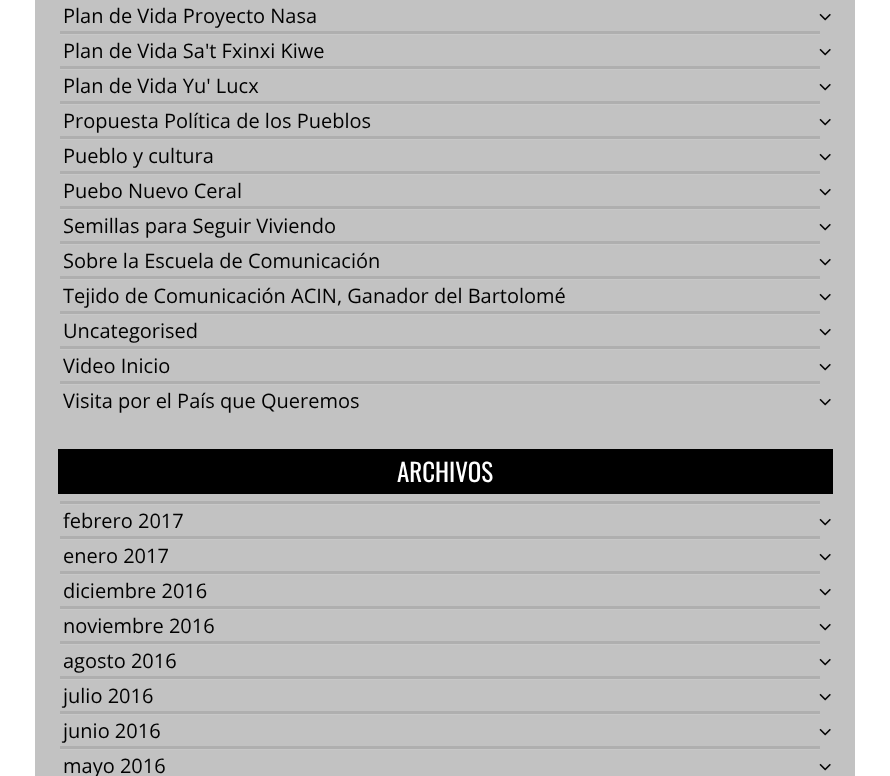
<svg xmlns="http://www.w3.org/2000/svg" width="890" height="776">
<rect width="100%" height="100%" fill="#fff"/>
<rect x="35" width="820" height="776" fill="#c2c2c2"/>
<text x="63" y="23" style="font-family:Open Sans;font-size:20px;fill:#000">Plan de Vida Proyecto Nasa</text>
<image x="819" y="13" width="12" height="8" href="media/1.png"/>
<rect x="60" y="31" width="760" height="3" fill="#afafaf"/>
<rect x="60" y="34" width="760" height="1" fill="#c8c8c8"/>
<text x="63" y="58" style="font-family:Open Sans;font-size:20px;fill:#000">Plan de Vida Sa't Fxinxi Kiwe</text>
<image x="819" y="48" width="12" height="8" href="media/1.png"/>
<rect x="60" y="66" width="760" height="3" fill="#afafaf"/>
<rect x="60" y="69" width="760" height="1" fill="#c8c8c8"/>
<text x="63" y="93" style="font-family:Open Sans;font-size:20px;fill:#000">Plan de Vida Yu' Lucx</text>
<image x="819" y="83" width="12" height="8" href="media/1.png"/>
<rect x="60" y="101" width="760" height="3" fill="#afafaf"/>
<rect x="60" y="104" width="760" height="1" fill="#c8c8c8"/>
<text x="63" y="128" style="font-family:Open Sans;font-size:20px;fill:#000">Propuesta Política de los Pueblos</text>
<image x="819" y="118" width="12" height="8" href="media/1.png"/>
<rect x="60" y="136" width="760" height="3" fill="#afafaf"/>
<rect x="60" y="139" width="760" height="1" fill="#c8c8c8"/>
<text x="63" y="163" style="font-family:Open Sans;font-size:20px;fill:#000">Pueblo y cultura</text>
<image x="819" y="153" width="12" height="8" href="media/1.png"/>
<rect x="60" y="171" width="760" height="3" fill="#afafaf"/>
<rect x="60" y="174" width="760" height="1" fill="#c8c8c8"/>
<text x="63" y="198" style="font-family:Open Sans;font-size:20px;fill:#000">Puebo Nuevo Ceral</text>
<image x="819" y="188" width="12" height="8" href="media/1.png"/>
<rect x="60" y="206" width="760" height="3" fill="#afafaf"/>
<rect x="60" y="209" width="760" height="1" fill="#c8c8c8"/>
<text x="63" y="233" style="font-family:Open Sans;font-size:20px;fill:#000">Semillas para Seguir Viviendo</text>
<image x="819" y="223" width="12" height="8" href="media/1.png"/>
<rect x="60" y="241" width="760" height="3" fill="#afafaf"/>
<rect x="60" y="244" width="760" height="1" fill="#c8c8c8"/>
<text x="63" y="268" style="font-family:Open Sans;font-size:20px;fill:#000">Sobre la Escuela de Comunicación</text>
<image x="819" y="258" width="12" height="8" href="media/1.png"/>
<rect x="60" y="276" width="760" height="3" fill="#afafaf"/>
<rect x="60" y="279" width="760" height="1" fill="#c8c8c8"/>
<text x="63" y="303" style="font-family:Open Sans;font-size:20px;fill:#000">Tejido de Comunicación ACIN, Ganador del Bartolomé</text>
<image x="819" y="293" width="12" height="8" href="media/1.png"/>
<rect x="60" y="311" width="760" height="3" fill="#afafaf"/>
<rect x="60" y="314" width="760" height="1" fill="#c8c8c8"/>
<text x="63" y="338" style="font-family:Open Sans;font-size:20px;fill:#000">Uncategorised</text>
<image x="819" y="328" width="12" height="8" href="media/1.png"/>
<rect x="60" y="346" width="760" height="3" fill="#afafaf"/>
<rect x="60" y="349" width="760" height="1" fill="#c8c8c8"/>
<text x="63" y="373" style="font-family:Open Sans;font-size:20px;fill:#000">Video Inicio</text>
<image x="819" y="363" width="12" height="8" href="media/1.png"/>
<rect x="60" y="381" width="760" height="3" fill="#afafaf"/>
<rect x="60" y="384" width="760" height="1" fill="#c8c8c8"/>
<text x="63" y="408" style="font-family:Open Sans;font-size:20px;fill:#000">Visita por el País que Queremos</text>
<image x="819" y="398" width="12" height="8" href="media/1.png"/>
<rect x="58" y="449" width="775" height="45" fill="#000"/>
<text x="397" y="482" style="font-family:Oswald;font-size:25px;fill:#fff">ARCHIVOS</text>
<rect x="60" y="501" width="760" height="3" fill="#afafaf"/>
<rect x="60" y="504" width="760" height="1" fill="#c8c8c8"/>
<text x="63" y="528" style="font-family:Open Sans;font-size:20px;fill:#000">febrero 2017</text>
<image x="819" y="518" width="12" height="8" href="media/1.png"/>
<rect x="60" y="536" width="760" height="3" fill="#afafaf"/>
<rect x="60" y="539" width="760" height="1" fill="#c8c8c8"/>
<text x="63" y="563" style="font-family:Open Sans;font-size:20px;fill:#000">enero 2017</text>
<image x="819" y="553" width="12" height="8" href="media/1.png"/>
<rect x="60" y="571" width="760" height="3" fill="#afafaf"/>
<rect x="60" y="574" width="760" height="1" fill="#c8c8c8"/>
<text x="63" y="598" style="font-family:Open Sans;font-size:20px;fill:#000">diciembre 2016</text>
<image x="819" y="588" width="12" height="8" href="media/1.png"/>
<rect x="60" y="606" width="760" height="3" fill="#afafaf"/>
<rect x="60" y="609" width="760" height="1" fill="#c8c8c8"/>
<text x="63" y="633" style="font-family:Open Sans;font-size:20px;fill:#000">noviembre 2016</text>
<image x="819" y="623" width="12" height="8" href="media/1.png"/>
<rect x="60" y="641" width="760" height="3" fill="#afafaf"/>
<rect x="60" y="644" width="760" height="1" fill="#c8c8c8"/>
<text x="63" y="668" style="font-family:Open Sans;font-size:20px;fill:#000">agosto 2016</text>
<image x="819" y="658" width="12" height="8" href="media/1.png"/>
<rect x="60" y="676" width="760" height="3" fill="#afafaf"/>
<rect x="60" y="679" width="760" height="1" fill="#c8c8c8"/>
<text x="63" y="703" style="font-family:Open Sans;font-size:20px;fill:#000">julio 2016</text>
<image x="819" y="693" width="12" height="8" href="media/1.png"/>
<rect x="60" y="711" width="760" height="3" fill="#afafaf"/>
<rect x="60" y="714" width="760" height="1" fill="#c8c8c8"/>
<text x="63" y="738" style="font-family:Open Sans;font-size:20px;fill:#000">junio 2016</text>
<image x="819" y="728" width="12" height="8" href="media/1.png"/>
<rect x="60" y="746" width="760" height="3" fill="#afafaf"/>
<rect x="60" y="749" width="760" height="1" fill="#c8c8c8"/>
<text x="63" y="773" style="font-family:Open Sans;font-size:20px;fill:#000">mayo 2016</text>
<image x="819" y="763" width="12" height="8" href="media/1.png"/>
</svg>
